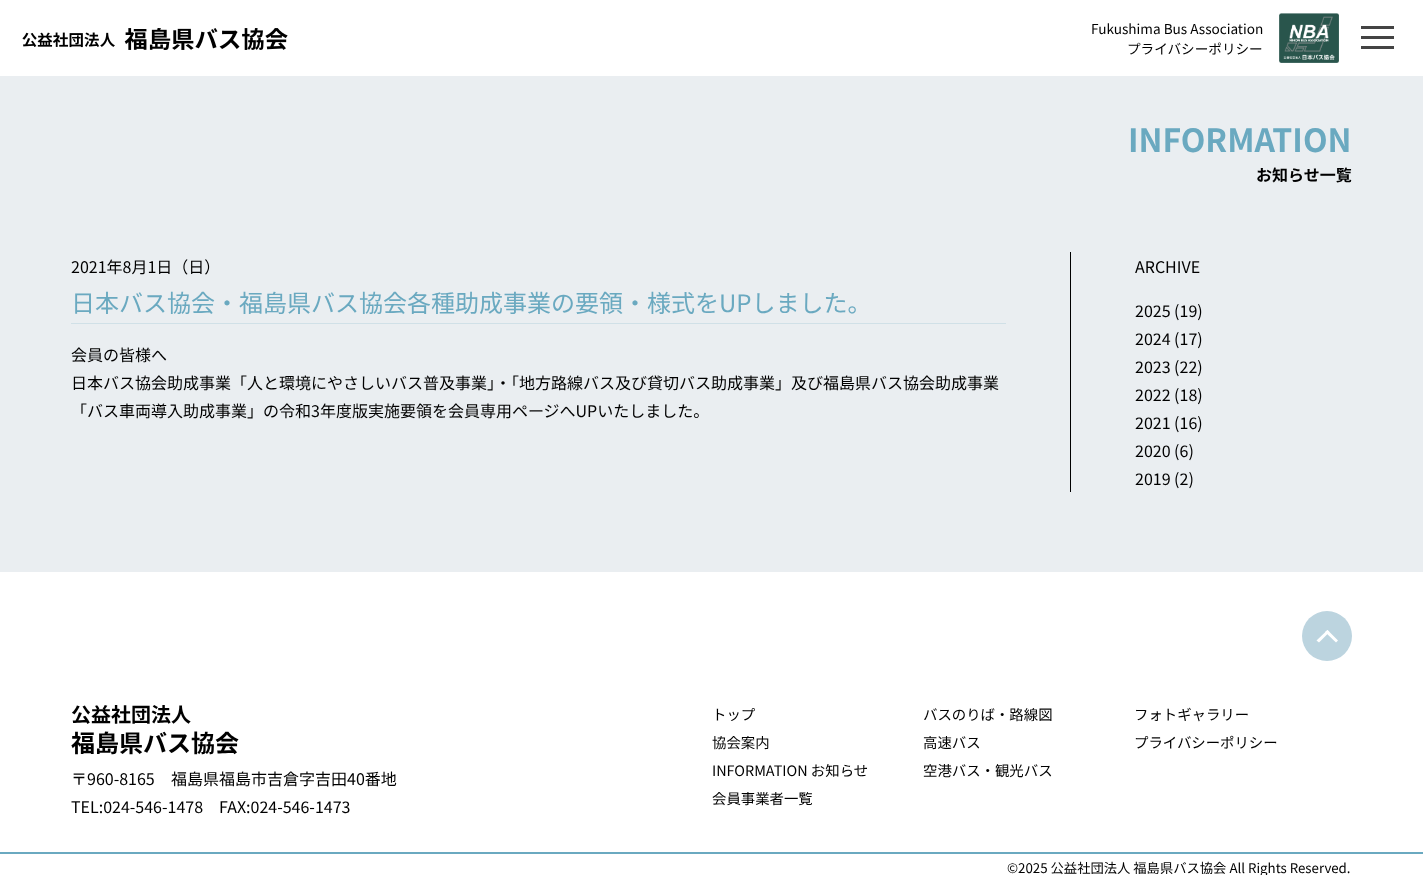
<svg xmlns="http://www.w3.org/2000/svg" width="1423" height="875">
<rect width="100%" height="100%" fill="#fff"/>
<image x="22" y="28" width="266" height="22" href="media/1.png"/>
<text x="1091" y="34" style="font-family:Noto Sans JP;font-size:13.6px;fill:#000">Fukushima Bus Association</text>
<text x="1127" y="54" style="font-family:Noto Sans JP;font-size:13.6px;fill:#000">プライバシーポリシー</text>
<image x="1279" y="13" width="60" height="50" href="media/2.png"/>
<rect x="1361" y="26" width="33" height="3" fill="#444"/>
<rect x="1361" y="36" width="33" height="3" fill="#444"/>
<rect x="1361" y="46" width="33" height="3" fill="#444"/>
<rect y="76" width="1423" height="496" fill="#eaeef1"/>
<text x="1128" y="152" style="font-family:Noto Sans JP;font-size:32px;font-weight:bold;fill:#6aa9c0">INFORMATION</text>
<text x="1256" y="181" style="font-family:Noto Sans JP;font-size:16px;font-weight:bold;fill:#000">お知らせ一覧</text>
<text x="71" y="273" style="font-family:Noto Sans JP;font-size:16px;fill:#000">2021年8月1日（日）</text>
<text x="71" y="312" style="font-family:Noto Sans JP;font-size:24px;fill:#6aa9c0">日本バス協会・福島県バス協会各種助成事業の要領・様式をUPしました。</text>
<rect x="71" y="323" width="935" height="1" fill="#d0e0e7"/>
<text x="71" y="361" style="font-family:Noto Sans JP;font-size:16px;fill:#000">会員の皆様へ</text>
<text x="71" y="389" style="font-family:Noto Sans JP;font-size:16px;fill:#000">日本バス協会助成事業「人と環境にやさしいバス普及事業」・「地方路線バス及び貸切バス助成事業」及び福島県バス協会助成事業</text>
<text x="71" y="417" style="font-family:Noto Sans JP;font-size:16px;fill:#000">「バス車両導入助成事業」の令和3年度版実施要領を会員専用ページへUPいたしました。</text>
<rect x="1070" y="252" width="1" height="240" fill="#000"/>
<text x="1135" y="273" style="font-family:Noto Sans JP;font-size:16px;fill:#000">ARCHIVE</text>
<text x="1135" y="317" style="font-family:Noto Sans JP;font-size:16px;fill:#000">2025 (19)</text>
<text x="1135" y="345" style="font-family:Noto Sans JP;font-size:16px;fill:#000">2024 (17)</text>
<text x="1135" y="373" style="font-family:Noto Sans JP;font-size:16px;fill:#000">2023 (22)</text>
<text x="1135" y="401" style="font-family:Noto Sans JP;font-size:16px;fill:#000">2022 (18)</text>
<text x="1135" y="429" style="font-family:Noto Sans JP;font-size:16px;fill:#000">2021 (16)</text>
<text x="1135" y="457" style="font-family:Noto Sans JP;font-size:16px;fill:#000">2020 (6)</text>
<text x="1135" y="485" style="font-family:Noto Sans JP;font-size:16px;fill:#000">2019 (2)</text>
<circle cx="1327" cy="636" r="25" fill="#bcd4df"/>
<path d="M1316.5 640.5l11-10.5l2 2l-10.5 10.5z" fill="#fff"/>
<path d="M1325 632l2.5-2l10.5 10.5l-2 2z" fill="#fff"/>
<text x="71" y="722" style="font-family:Noto Sans JP;font-size:20px;font-weight:bold;fill:#000">公益社団法人</text>
<text x="71" y="752" style="font-family:Noto Sans JP;font-size:24px;font-weight:bold;fill:#000">福島県バス協会</text>
<text x="71" y="785" style="font-family:Noto Sans JP;font-size:16px;fill:#000">〒960-8165</text>
<text x="171" y="785" style="font-family:Noto Sans JP;font-size:16px;fill:#000">福島県福島市吉倉字吉田40番地</text>
<text x="71" y="813" style="font-family:Noto Sans JP;font-size:16px;fill:#000">TEL:024-546-1478　FAX:024-546-1473</text>
<text x="712" y="720" style="font-family:Noto Sans JP;font-size:14.4px;fill:#000">トップ</text>
<text x="923" y="720" style="font-family:Noto Sans JP;font-size:14.4px;fill:#000">バスのりば・路線図</text>
<text x="1134" y="720" style="font-family:Noto Sans JP;font-size:14.4px;fill:#000">フォトギャラリー</text>
<text x="712" y="748" style="font-family:Noto Sans JP;font-size:14.4px;fill:#000">協会案内</text>
<text x="923" y="748" style="font-family:Noto Sans JP;font-size:14.4px;fill:#000">高速バス</text>
<text x="1134" y="748" style="font-family:Noto Sans JP;font-size:14.4px;fill:#000">プライバシーポリシー</text>
<text x="712" y="776" style="font-family:Noto Sans JP;font-size:14.4px;fill:#000">INFORMATION お知らせ</text>
<text x="923" y="776" style="font-family:Noto Sans JP;font-size:14.4px;fill:#000">空港バス・観光バス</text>
<text x="712" y="804" style="font-family:Noto Sans JP;font-size:14.4px;fill:#000">会員事業者一覧</text>
<rect y="852" width="1423" height="2" fill="#6aa9c0"/>
<text x="1007" y="873" style="font-family:Noto Sans JP;font-size:13.3px;fill:#000">©2025 公益社団法人 福島県バス協会 All Rights Reserved.</text>
</svg>
